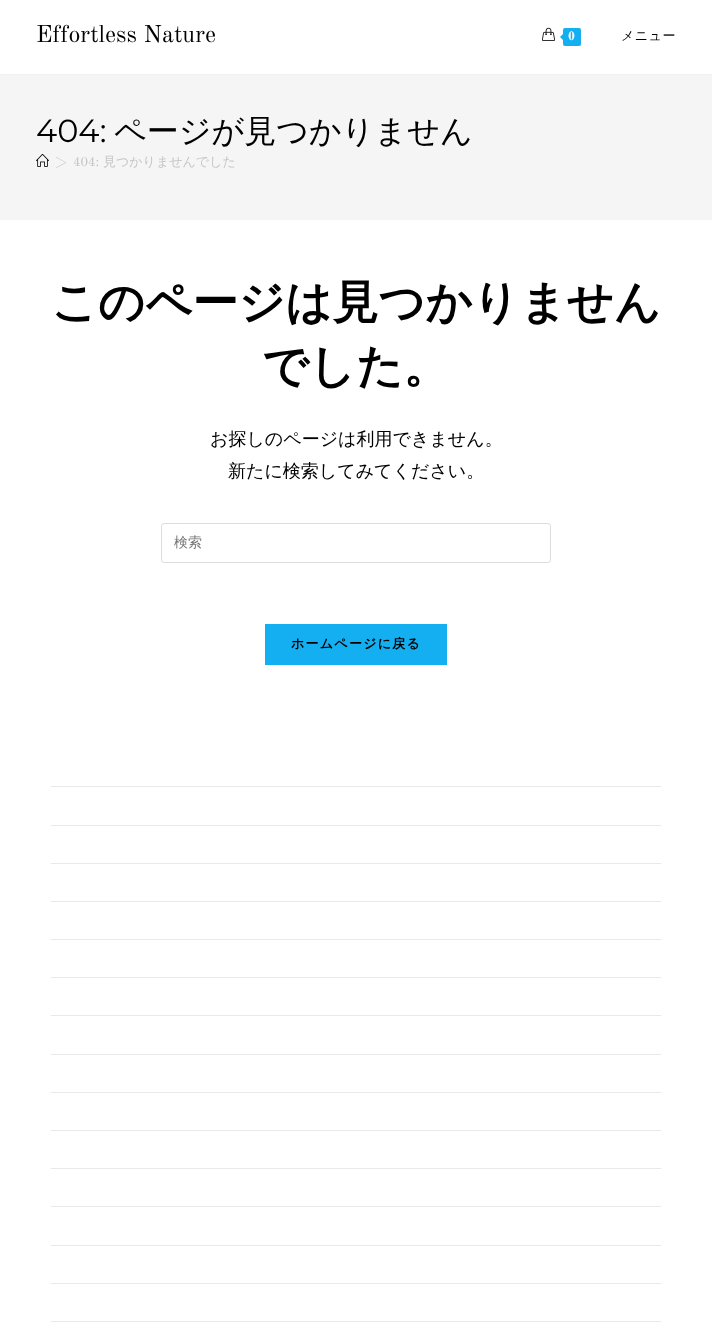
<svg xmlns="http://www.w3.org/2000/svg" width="712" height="1324">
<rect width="100%" height="100%" fill="#fff"/>
<rect y="74" width="712" height="1" fill="#f1f1f1"/>
<text x="36" y="42" style="font-family:Old Standard TT;font-size:24px;fill:#000">Effortless Nature</text>
<image x="542" y="27" width="13" height="14" href="media/1.png"/>
<rect x="563" y="28" width="18" height="18" rx="2" fill="#13aff0"/>
<path d="M565 32v10l-5-5z" fill="#13aff0"/>
<text x="568" y="40" style="font-family:Old Standard TT;font-size:12px;font-weight:bold;letter-spacing:0.5px;fill:#fff">0</text>
<text x="621" y="40" style="font-family:WenQuanYi Zen Hei;font-size:13px;font-weight:500;letter-spacing:0.5px;fill:#000">メニュー</text>
<rect y="75" width="712" height="145" fill="#f5f5f5"/>
<text x="36" y="142" style="font-family:Montserrat;font-size:32px;fill:#000">404:</text>
<text x="114" y="142" style="font-family:WenQuanYi Zen Hei;font-size:32px;font-weight:500;fill:#000">ページが見つかりません</text>
<image x="36" y="154" width="13" height="13" href="media/2.png"/>
<text x="55" y="166" style="font-family:Old Standard TT;font-size:13px;fill:#c6c6c6">&gt;</text>
<text x="73" y="166" style="font-family:Old Standard TT;font-size:13px;fill:#c6c6c6">404:</text>
<text x="103" y="166" style="font-family:WenQuanYi Zen Hei;font-size:13px;font-weight:500;fill:#c6c6c6">見つかりませんでした</text>
<text x="51" y="318" style="font-family:WenQuanYi Zen Hei;font-size:46px;font-weight:bold;fill:#000">このページは見つかりません</text>
<text x="262" y="382" style="font-family:WenQuanYi Zen Hei;font-size:46px;font-weight:bold;fill:#000">でした。</text>
<text x="210" y="445" style="font-family:WenQuanYi Zen Hei;font-size:18px;font-weight:500;fill:#000">お探しのページは利用できません。</text>
<text x="228" y="477" style="font-family:WenQuanYi Zen Hei;font-size:18px;font-weight:500;fill:#000">新たに検索してみてください。</text>
<rect x="161.5" y="523.5" width="389" height="39" rx="2.5" fill="none" stroke="#ddd"/>
<text x="174" y="547" style="font-family:WenQuanYi Zen Hei;font-size:14px;font-weight:500;fill:#757575">検索</text>
<rect x="265" y="624" width="182" height="41" fill="#13aff0"/>
<text x="291" y="648" style="font-family:WenQuanYi Zen Hei;font-size:13px;font-weight:bold;letter-spacing:1.25px;fill:#000">ホームページに戻る</text>
<rect x="51" y="786" width="610" height="1" fill="#e9e9e9"/>
<rect x="51" y="825" width="610" height="1" fill="#e9e9e9"/>
<rect x="51" y="863" width="610" height="1" fill="#e9e9e9"/>
<rect x="51" y="901" width="610" height="1" fill="#e9e9e9"/>
<rect x="51" y="939" width="610" height="1" fill="#e9e9e9"/>
<rect x="51" y="977" width="610" height="1" fill="#e9e9e9"/>
<rect x="51" y="1015" width="610" height="1" fill="#e9e9e9"/>
<rect x="51" y="1054" width="610" height="1" fill="#e9e9e9"/>
<rect x="51" y="1092" width="610" height="1" fill="#e9e9e9"/>
<rect x="51" y="1130" width="610" height="1" fill="#e9e9e9"/>
<rect x="51" y="1168" width="610" height="1" fill="#e9e9e9"/>
<rect x="51" y="1206" width="610" height="1" fill="#e9e9e9"/>
<rect x="51" y="1245" width="610" height="1" fill="#e9e9e9"/>
<rect x="51" y="1283" width="610" height="1" fill="#e9e9e9"/>
<rect x="51" y="1321" width="610" height="1" fill="#e9e9e9"/>
</svg>
